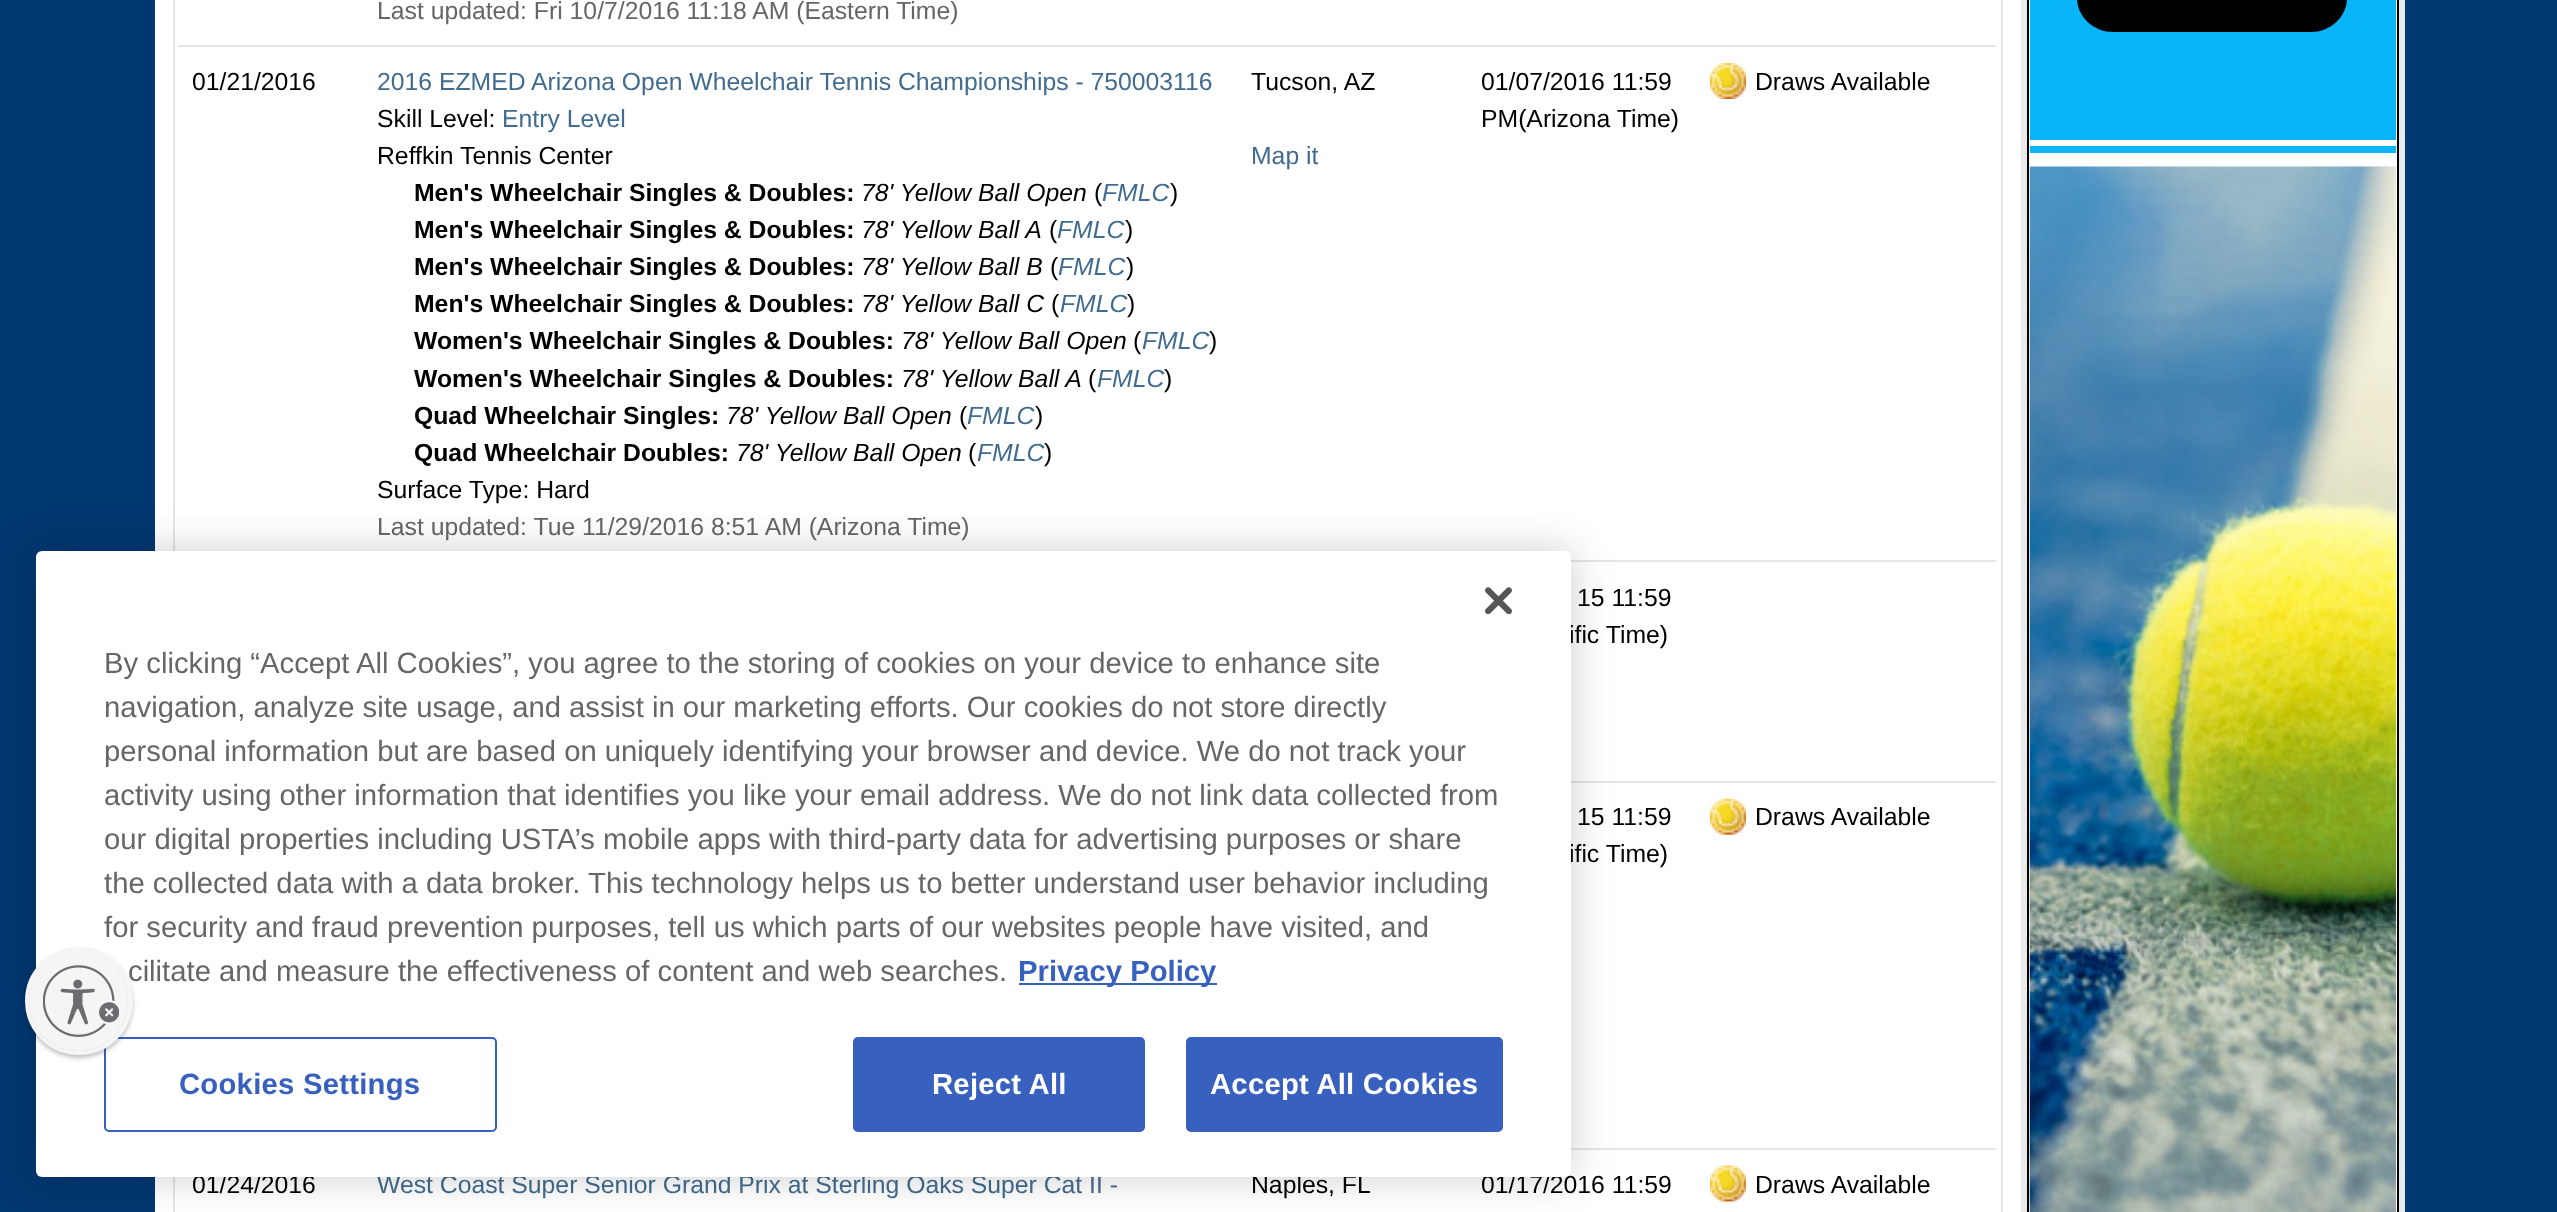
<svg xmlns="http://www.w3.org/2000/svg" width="2557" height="1212">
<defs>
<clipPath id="clip1"><rect x="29" y="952" width="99" height="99" rx="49.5"/></clipPath>
</defs>
<rect width="100%" height="100%" fill="#003871"/>
<rect x="2021" width="384" height="1212" fill="#eaeaea"/>
<rect x="155" width="1866" height="1212" fill="#fff"/>
<rect x="174" y="-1" width="1828" height="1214" fill="none" stroke="#e5e5e5" stroke-width="2"/>
<text x="377" y="19" style="font-family:Liberation Sans;font-size:24.75px;fill:#666">Last updated: Fri 10/7/2016 11:18 AM (Eastern Time)</text>
<text x="192" y="90" style="font-family:Liberation Sans;font-size:24.75px;fill:#000">01/21/2016</text>
<text x="377" y="90" style="font-family:Liberation Sans;font-size:24.75px;fill:#416c8f">2016 EZMED Arizona Open Wheelchair Tennis Championships - 750003116</text>
<text x="377" y="127" style="font-family:Liberation Sans;font-size:24.75px;fill:#000">Skill Level:</text>
<text x="502" y="127" style="font-family:Liberation Sans;font-size:24.75px;fill:#416c8f">Entry Level</text>
<text x="377" y="164" style="font-family:Liberation Sans;font-size:24.75px;fill:#000">Reffkin Tennis Center</text>
<text x="414" y="201" style="font-family:Liberation Sans;font-size:24.75px;font-weight:bold;fill:#000">Men's Wheelchair Singles &amp; Doubles:</text>
<text x="861" y="201" style="font-family:Liberation Sans;font-size:24.75px;font-style:italic;fill:#000">78' Yellow Ball Open</text>
<text x="1094" y="201" style="font-family:Liberation Sans;font-size:24.75px;fill:#000">(</text>
<text x="1170" y="201" style="font-family:Liberation Sans;font-size:24.75px;fill:#000">)</text>
<text x="1102" y="201" style="font-family:Liberation Sans;font-size:24.75px;font-style:italic;fill:#416c8f">FMLC</text>
<text x="414" y="238" style="font-family:Liberation Sans;font-size:24.75px;font-weight:bold;fill:#000">Men's Wheelchair Singles &amp; Doubles:</text>
<text x="861" y="238" style="font-family:Liberation Sans;font-size:24.75px;font-style:italic;fill:#000">78' Yellow Ball A</text>
<text x="1049" y="238" style="font-family:Liberation Sans;font-size:24.75px;fill:#000">(</text>
<text x="1125" y="238" style="font-family:Liberation Sans;font-size:24.75px;fill:#000">)</text>
<text x="1057" y="238" style="font-family:Liberation Sans;font-size:24.75px;font-style:italic;fill:#416c8f">FMLC</text>
<text x="414" y="275" style="font-family:Liberation Sans;font-size:24.75px;font-weight:bold;fill:#000">Men's Wheelchair Singles &amp; Doubles:</text>
<text x="861" y="275" style="font-family:Liberation Sans;font-size:24.75px;font-style:italic;fill:#000">78' Yellow Ball B</text>
<text x="1050" y="275" style="font-family:Liberation Sans;font-size:24.75px;fill:#000">(</text>
<text x="1126" y="275" style="font-family:Liberation Sans;font-size:24.75px;fill:#000">)</text>
<text x="1058" y="275" style="font-family:Liberation Sans;font-size:24.75px;font-style:italic;fill:#416c8f">FMLC</text>
<text x="414" y="312" style="font-family:Liberation Sans;font-size:24.75px;font-weight:bold;fill:#000">Men's Wheelchair Singles &amp; Doubles:</text>
<text x="861" y="312" style="font-family:Liberation Sans;font-size:24.75px;font-style:italic;fill:#000">78' Yellow Ball C</text>
<text x="1051" y="312" style="font-family:Liberation Sans;font-size:24.75px;fill:#000">(</text>
<text x="1127" y="312" style="font-family:Liberation Sans;font-size:24.75px;fill:#000">)</text>
<text x="1060" y="312" style="font-family:Liberation Sans;font-size:24.75px;font-style:italic;fill:#416c8f">FMLC</text>
<text x="414" y="349" style="font-family:Liberation Sans;font-size:24.75px;font-weight:bold;fill:#000">Women's Wheelchair Singles &amp; Doubles:</text>
<text x="901" y="349" style="font-family:Liberation Sans;font-size:24.75px;font-style:italic;fill:#000">78' Yellow Ball Open</text>
<text x="1133" y="349" style="font-family:Liberation Sans;font-size:24.75px;fill:#000">(</text>
<text x="1209" y="349" style="font-family:Liberation Sans;font-size:24.75px;fill:#000">)</text>
<text x="1142" y="349" style="font-family:Liberation Sans;font-size:24.75px;font-style:italic;fill:#416c8f">FMLC</text>
<text x="414" y="387" style="font-family:Liberation Sans;font-size:24.75px;font-weight:bold;fill:#000">Women's Wheelchair Singles &amp; Doubles:</text>
<text x="901" y="387" style="font-family:Liberation Sans;font-size:24.75px;font-style:italic;fill:#000">78' Yellow Ball A</text>
<text x="1088" y="387" style="font-family:Liberation Sans;font-size:24.75px;fill:#000">(</text>
<text x="1164" y="387" style="font-family:Liberation Sans;font-size:24.75px;fill:#000">)</text>
<text x="1097" y="387" style="font-family:Liberation Sans;font-size:24.75px;font-style:italic;fill:#416c8f">FMLC</text>
<text x="414" y="424" style="font-family:Liberation Sans;font-size:24.75px;font-weight:bold;fill:#000">Quad Wheelchair Singles:</text>
<text x="726" y="424" style="font-family:Liberation Sans;font-size:24.75px;font-style:italic;fill:#000">78' Yellow Ball Open</text>
<text x="959" y="424" style="font-family:Liberation Sans;font-size:24.75px;fill:#000">(</text>
<text x="1035" y="424" style="font-family:Liberation Sans;font-size:24.75px;fill:#000">)</text>
<text x="967" y="424" style="font-family:Liberation Sans;font-size:24.75px;font-style:italic;fill:#416c8f">FMLC</text>
<text x="414" y="461" style="font-family:Liberation Sans;font-size:24.75px;font-weight:bold;fill:#000">Quad Wheelchair Doubles:</text>
<text x="736" y="461" style="font-family:Liberation Sans;font-size:24.75px;font-style:italic;fill:#000">78' Yellow Ball Open</text>
<text x="968" y="461" style="font-family:Liberation Sans;font-size:24.75px;fill:#000">(</text>
<text x="1044" y="461" style="font-family:Liberation Sans;font-size:24.75px;fill:#000">)</text>
<text x="977" y="461" style="font-family:Liberation Sans;font-size:24.75px;font-style:italic;fill:#416c8f">FMLC</text>
<text x="377" y="498" style="font-family:Liberation Sans;font-size:24.75px;fill:#000">Surface Type: Hard</text>
<text x="377" y="535" style="font-family:Liberation Sans;font-size:24.75px;fill:#666">Last updated: Tue 11/29/2016 8:51 AM (Arizona Time)</text>
<text x="1251" y="90" style="font-family:Liberation Sans;font-size:24.75px;fill:#000">Tucson, AZ</text>
<text x="1251" y="164" style="font-family:Liberation Sans;font-size:24.75px;fill:#416c8f">Map it</text>
<text x="1481" y="90" style="font-family:Liberation Sans;font-size:24.75px;fill:#000">01/07/2016 11:59</text>
<text x="1481" y="127" style="font-family:Liberation Sans;font-size:24.75px;fill:#000">PM(Arizona Time)</text>
<rect x="178" y="45" width="1818" height="2" fill="#e5e5e5"/>
<image x="1710" y="63" width="36" height="36" href="media/1.png"/>
<text x="1755" y="90" style="font-family:Liberation Sans;font-size:24.75px;fill:#000">Draws Available</text>
<rect x="1571" y="560" width="425" height="2" fill="#e5e5e5"/>
<text x="1577" y="606" style="font-family:Liberation Sans;font-size:24.75px;fill:#000">15 11:59</text>
<text x="1569" y="643" style="font-family:Liberation Sans;font-size:24.75px;fill:#000">ific Time)</text>
<text x="1577" y="825" style="font-family:Liberation Sans;font-size:24.75px;fill:#000">15 11:59</text>
<text x="1569" y="862" style="font-family:Liberation Sans;font-size:24.75px;fill:#000">ific Time)</text>
<rect x="1571" y="781" width="425" height="2" fill="#e5e5e5"/>
<image x="1710" y="798" width="36" height="37" href="media/2.png"/>
<text x="1755" y="825" style="font-family:Liberation Sans;font-size:24.75px;fill:#000">Draws Available</text>
<text x="192" y="1193" style="font-family:Liberation Sans;font-size:24.75px;fill:#000">01/24/2016</text>
<text x="377" y="1193" style="font-family:Liberation Sans;font-size:24.75px;fill:#416c8f">West Coast Super Senior Grand Prix at Sterling Oaks Super Cat II -</text>
<text x="1251" y="1193" style="font-family:Liberation Sans;font-size:24.75px;fill:#000">Naples, FL</text>
<text x="1481" y="1193" style="font-family:Liberation Sans;font-size:24.75px;fill:#000">01/17/2016 11:59</text>
<rect x="1571" y="1148" width="425" height="2" fill="#e5e5e5"/>
<image x="1710" y="1165" width="36" height="37" href="media/3.png"/>
<text x="1755" y="1193" style="font-family:Liberation Sans;font-size:24.75px;fill:#000">Draws Available</text>
<rect x="2028" y="-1" width="370" height="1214" fill="#fff" stroke="#000" stroke-width="2"/>
<rect x="2030" width="366" height="140" fill="#09b5f7"/>
<rect x="2077" y="-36" width="270" height="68" rx="36" fill="#000"/>
<rect x="2030" y="146" width="366" height="7" fill="#09b5f7"/>
<image x="2029" y="166" width="368" height="1046" href="media/4.png"/>
<rect x="36" y="551" width="1535" height="626" rx="6" fill="#00000033" filter="blur(20px)"/>
<rect x="36" y="551" width="1535" height="626" rx="6" fill="#fff"/>
<rect x="105" y="1038" width="391" height="93" rx="4" fill="none" stroke="#3860be" stroke-width="2"/>
<rect x="25" y="950" width="108" height="108" rx="54" fill="#0000003d" filter="blur(2px)"/>
<text x="128" y="981" style="font-family:Liberation Sans;font-size:29.25px;fill:#666">cilitate and measure the effectiveness of content and web searches.</text>
<circle cx="79" cy="1001" r="51.5" fill="#ebebf0" stroke="#f5f5f5" stroke-width="5"/>
<g clip-path="url(#clip1)">
<rect x="29" y="954" width="99" height="99" rx="49.5" fill="#0000003d" filter="blur(2px)"/>
</g>
<circle cx="78.5" cy="1001.5" r="49.5" fill="#f5f5f5"/>
<image x="43" y="965" width="76" height="72" href="media/5.png"/>
<image x="1485" y="587" width="27" height="27" href="media/6.png"/>
<text x="104" y="673" style="font-family:Liberation Sans;font-size:29.25px;fill:#666">By clicking “Accept All Cookies”, you agree to the storing of cookies on your device to enhance site</text>
<text x="104" y="717" style="font-family:Liberation Sans;font-size:29.25px;fill:#666">navigation, analyze site usage, and assist in our marketing efforts. Our cookies do not store directly</text>
<text x="104" y="761" style="font-family:Liberation Sans;font-size:29.25px;fill:#666">personal information but are based on uniquely identifying your browser and device. We do not track your</text>
<text x="104" y="805" style="font-family:Liberation Sans;font-size:29.25px;fill:#666">activity using other information that identifies you like your email address. We do not link data collected from</text>
<text x="104" y="849" style="font-family:Liberation Sans;font-size:29.25px;fill:#666">our digital properties including USTA’s mobile apps with third-party data for advertising purposes or share</text>
<text x="104" y="893" style="font-family:Liberation Sans;font-size:29.25px;fill:#666">the collected data with a data broker. This technology helps us to better understand user behavior including</text>
<text x="104" y="937" style="font-family:Liberation Sans;font-size:29.25px;fill:#666">for security and fraud prevention purposes, tell us which parts of our websites people have visited, and</text>
<rect x="1019" y="983" width="198" height="2" fill="#3860be"/>
<text x="1018" y="981" style="font-family:Liberation Sans;font-size:29.25px;font-weight:bold;fill:#3860be">Privacy Policy</text>
<text x="179" y="1094" style="font-family:Liberation Sans;font-size:29.25px;font-weight:bold;letter-spacing:0.25px;fill:#3860be">Cookies Settings</text>
<rect x="854" y="1038" width="290" height="93" rx="4" fill="#3860be" stroke="#3860be" stroke-width="2"/>
<text x="932" y="1094" style="font-family:Liberation Sans;font-size:29.25px;font-weight:bold;letter-spacing:0.25px;fill:#fff">Reject All</text>
<rect x="1187" y="1038" width="315" height="93" rx="4" fill="#3860be" stroke="#3860be" stroke-width="2"/>
<text x="1210" y="1094" style="font-family:Liberation Sans;font-size:29.25px;font-weight:bold;letter-spacing:0.25px;fill:#fff">Accept All Cookies</text>
</svg>
